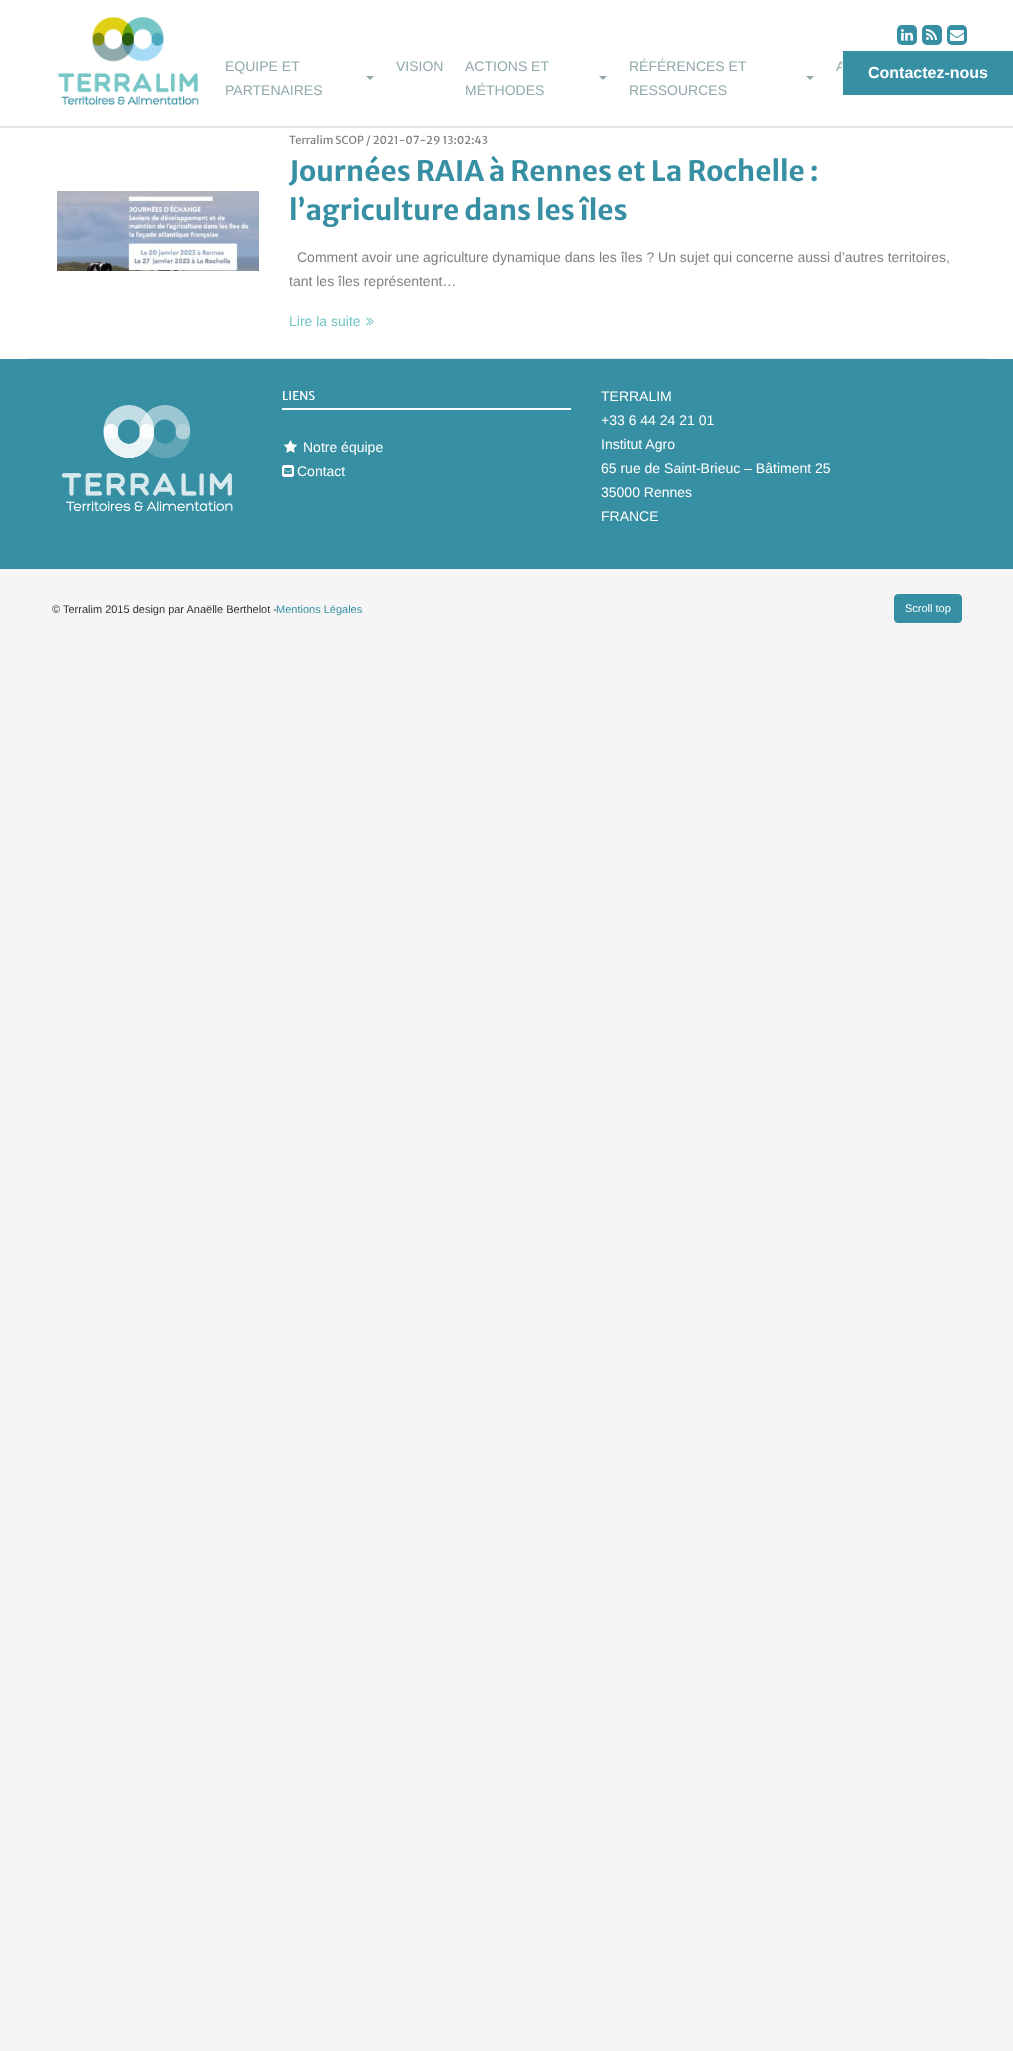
<svg xmlns="http://www.w3.org/2000/svg" width="1013" height="2051">
<rect width="100%" height="100%" fill="#f5f5f5"/>
<rect y="126" width="1013" height="2" fill="#e6e6e6"/>
<rect width="1013" height="126" fill="#fff"/>
<image x="57" y="17" width="142" height="88" href="media/1.png"/>
<rect x="897" y="25" width="20" height="20" rx="5" fill="#378fa4"/>
<image x="901" y="29" width="12" height="12" href="media/2.png"/>
<rect x="922" y="25" width="20" height="20" rx="5" fill="#378fa4"/>
<image x="926" y="29" width="11" height="11" href="media/3.png"/>
<rect x="947" y="25" width="20" height="20" rx="5" fill="#378fa4"/>
<image x="950" y="30" width="14" height="11" href="media/4.png"/>
<text x="225" y="71" style="font-family:Liberation Sans;font-size:14px;fill:#90a8a9">EQUIPE ET</text>
<text x="225" y="95" style="font-family:Liberation Sans;font-size:14px;fill:#90a8a9">PARTENAIRES</text>
<path d="M366 76h8l-4 4z" fill="#90a8a9"/>
<text x="396" y="71" style="font-family:Liberation Sans;font-size:14px;fill:#90a8a9">VISION</text>
<text x="465" y="71" style="font-family:Liberation Sans;font-size:14px;fill:#90a8a9">ACTIONS ET</text>
<text x="465" y="95" style="font-family:Liberation Sans;font-size:14px;fill:#90a8a9">MÉTHODES</text>
<path d="M599 76h8l-4 4z" fill="#90a8a9"/>
<text x="629" y="71" style="font-family:Liberation Sans;font-size:14px;fill:#90a8a9">RÉFÉRENCES ET</text>
<text x="629" y="95" style="font-family:Liberation Sans;font-size:14px;fill:#90a8a9">RESSOURCES</text>
<path d="M806 76h8l-4 4z" fill="#90a8a9"/>
<text x="836" y="71" style="font-family:Liberation Sans;font-size:14px;fill:#90a8a9">A</text>
<rect x="843" y="51" width="170" height="44" fill="#378fa4"/>
<rect x="842" y="64" width="1" height="6" fill="#fff"/>
<text x="868" y="78" style="font-family:Liberation Sans;font-size:16px;font-weight:bold;fill:#fff">Contactez-nous</text>
<rect y="128" width="1013" height="231" fill="#fff"/>
<rect x="27" y="358" width="960" height="1" fill="#e6e6e6"/>
<image x="57" y="191" width="202" height="80" href="media/5.png"/>
<text x="289" y="144" style="font-family:Merriweather Sans;font-size:11px;fill:#808080">Terralim SCOP / 2021-07-29 13:02:43</text>
<text x="289" y="181" style="font-family:Merriweather Sans;font-size:28px;font-weight:bold;fill:#378fa4">Journées RAIA à Rennes et La Rochelle :</text>
<text x="289" y="220" style="font-family:Merriweather Sans;font-size:28px;font-weight:bold;fill:#378fa4">l’agriculture dans les îles</text>
<text x="297" y="262" style="font-family:Liberation Sans;font-size:14px;fill:#808080">Comment avoir une agriculture dynamique dans les îles ? Un sujet qui concerne aussi d’autres territoires,</text>
<text x="289" y="286" style="font-family:Liberation Sans;font-size:14px;fill:#808080">tant les îles représentent…</text>
<text x="289" y="326" style="font-family:Liberation Sans;font-size:14px;fill:#74c5c4">Lire la suite</text>
<image x="366" y="317" width="8" height="9" href="media/6.png"/>
<rect y="359" width="1013" height="210" fill="#378fa4"/>
<image x="61" y="405" width="172" height="107" href="media/7.png"/>
<rect x="282" y="408" width="289" height="2" fill="#fff"/>
<text x="282" y="400" style="font-family:Merriweather Sans;font-size:12px;fill:#fff">LIENS</text>
<image x="284" y="440" width="13" height="13" href="media/8.png"/>
<text x="303" y="452" style="font-family:Liberation Sans;font-size:14px;fill:#fff">Notre équipe</text>
<image x="282" y="465" width="12" height="12" href="media/9.png"/>
<text x="297" y="476" style="font-family:Liberation Sans;font-size:14px;fill:#fff">Contact</text>
<text x="601" y="401" style="font-family:Liberation Sans;font-size:14px;fill:#fff">TERRALIM</text>
<text x="601" y="425" style="font-family:Liberation Sans;font-size:14px;fill:#fff">+33 6 44 24 21 01</text>
<text x="601" y="449" style="font-family:Liberation Sans;font-size:14px;fill:#fff">Institut Agro</text>
<text x="601" y="473" style="font-family:Liberation Sans;font-size:14px;fill:#fff">65 rue de Saint-Brieuc – Bâtiment 25</text>
<text x="601" y="497" style="font-family:Liberation Sans;font-size:14px;fill:#fff">35000 Rennes</text>
<text x="601" y="521" style="font-family:Liberation Sans;font-size:14px;fill:#fff">FRANCE</text>
<text x="52" y="613" style="font-family:Liberation Sans;font-size:11px;fill:#333">© Terralim 2015 design par Anaëlle Berthelot -</text>
<text x="276" y="613" style="font-family:Liberation Sans;font-size:11px;fill:#378fa4">Mentions Légales</text>
<rect x="894.5" y="594.5" width="67" height="28" rx="3.5" fill="#378fa4" stroke="#378fa4"/>
<text x="905" y="612" style="font-family:Liberation Sans;font-size:11px;fill:#fff">Scroll top</text>
</svg>
